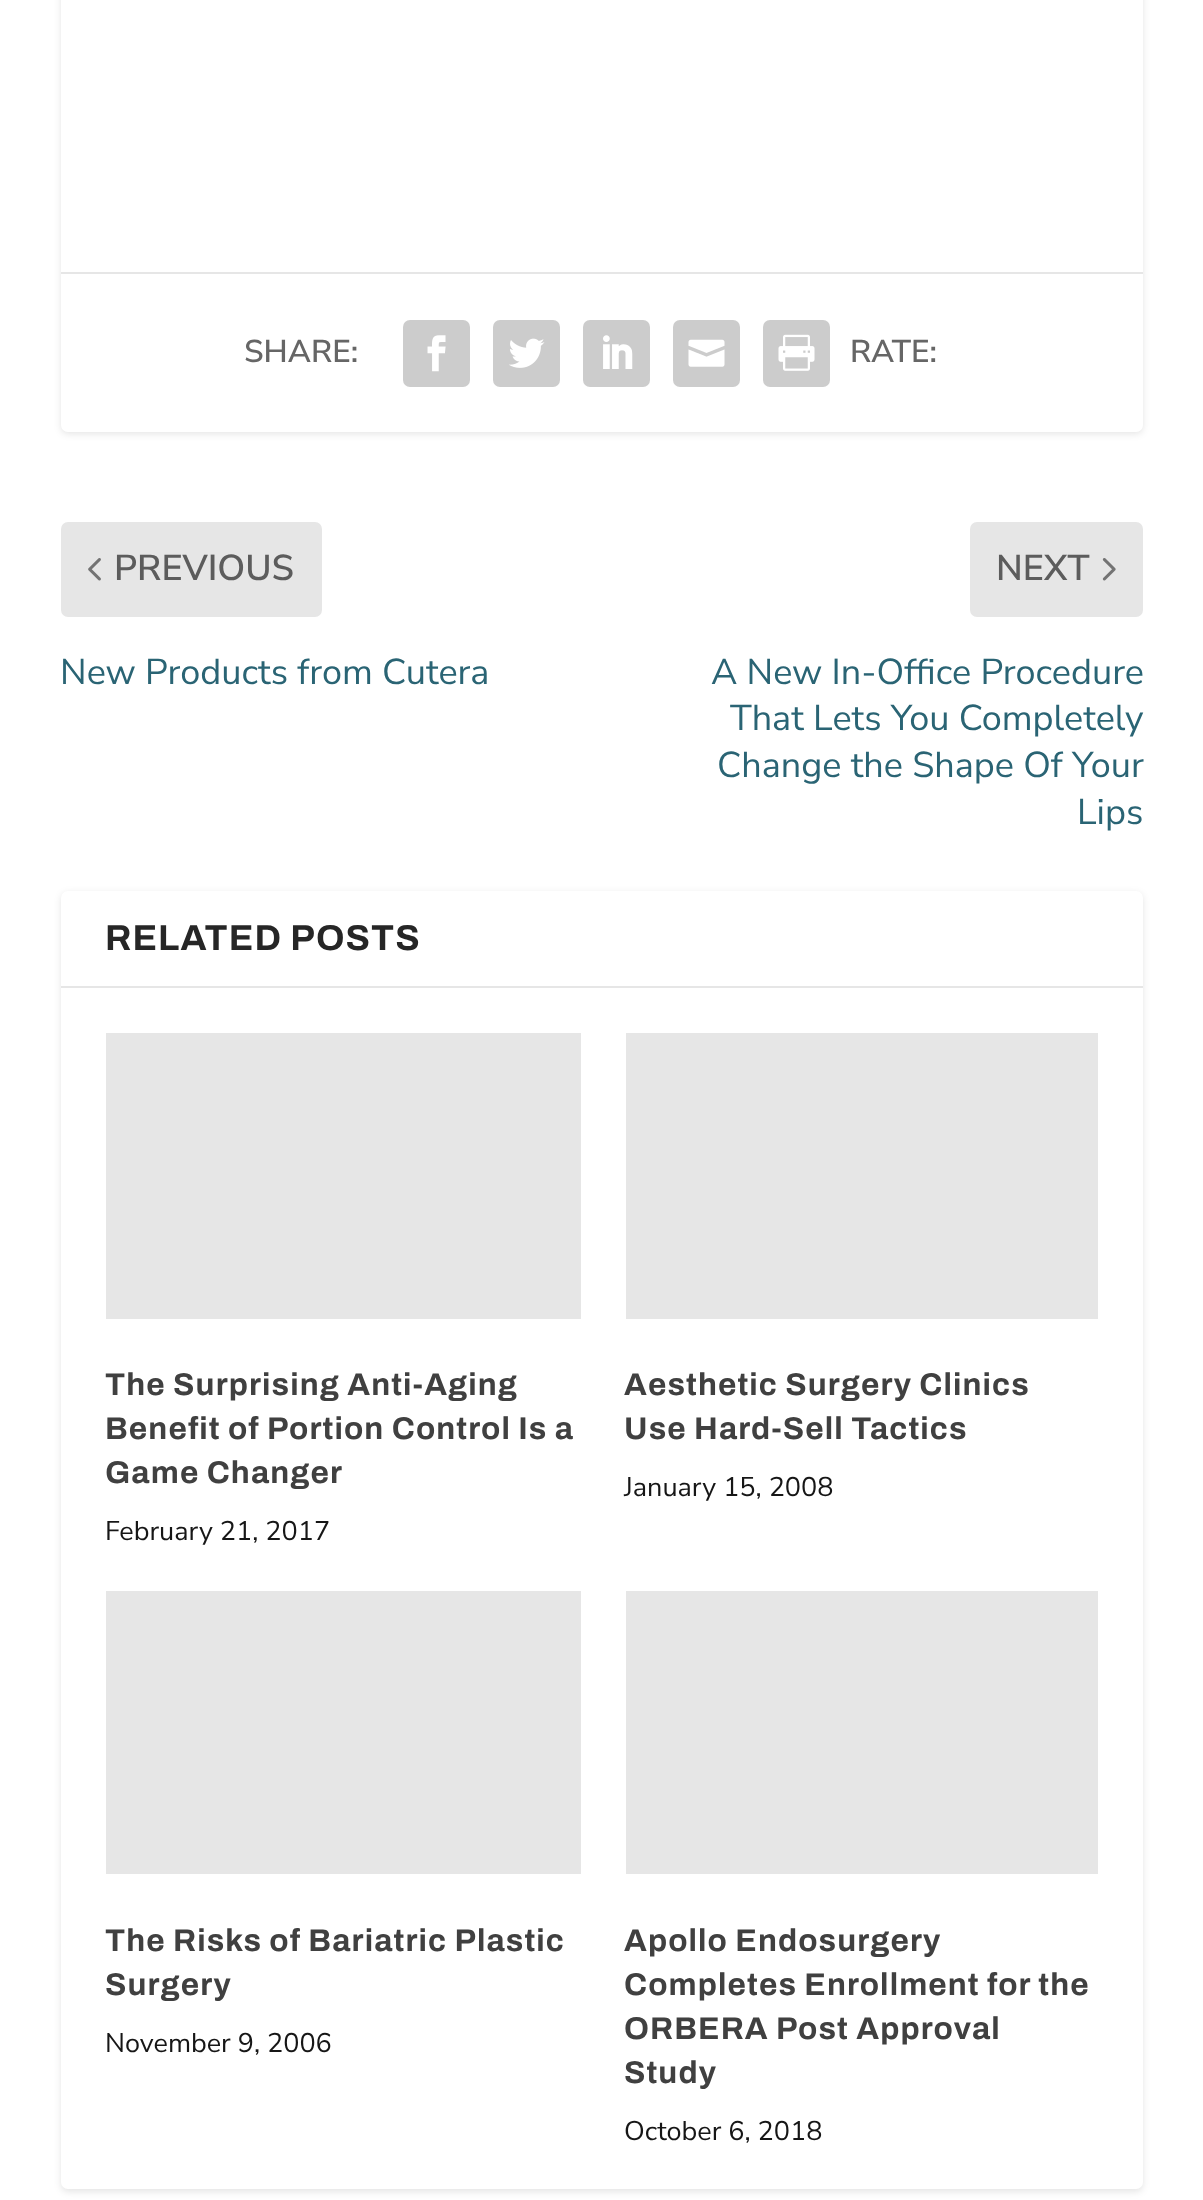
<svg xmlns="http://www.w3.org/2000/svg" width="1203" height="2200">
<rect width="100%" height="100%" fill="#fff"/>
<rect x="61" y="-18" width="1082" height="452" rx="7" fill="#0000001a" filter="blur(3.5px)"/>
<rect x="61" y="-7" width="1082" height="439" rx="7" fill="#fff"/>
<rect x="61" y="272" width="1082" height="2" fill="#e6e6e6"/>
<text x="244" y="362" style="font-family:Nunito Sans;font-size:31.5px;font-weight:600;fill:#666">SHARE:</text>
<rect x="403" y="320" width="67" height="67" rx="7" fill="#ccc"/>
<image x="427" y="335" width="19" height="37" href="media/1.png"/>
<rect x="493" y="320" width="67" height="67" rx="7" fill="#ccc"/>
<image x="509" y="338" width="36" height="30" href="media/2.png"/>
<rect x="583" y="320" width="67" height="67" rx="7" fill="#ccc"/>
<image x="603" y="335" width="30" height="34" href="media/3.png"/>
<rect x="673" y="320" width="67" height="67" rx="7" fill="#ccc"/>
<image x="688" y="339" width="37" height="28" href="media/4.png"/>
<rect x="763" y="320" width="67" height="67" rx="7" fill="#ccc"/>
<image x="778" y="334" width="37" height="37" href="media/5.png"/>
<text x="850" y="362" style="font-family:Nunito Sans;font-size:31.5px;font-weight:600;fill:#666">RATE:</text>
<rect x="61" y="522" width="261" height="95" rx="7" fill="#e6e6e6"/>
<image x="88" y="558" width="13" height="23" href="media/6.png"/>
<text x="114" y="580" style="font-family:Nunito Sans;font-size:36px;font-weight:600;fill:#5c5c5c">PREVIOUS</text>
<text x="60" y="684" style="font-family:Nunito Sans;font-size:36px;fill:#2a6474">New Products from Cutera</text>
<rect x="970" y="522" width="173" height="95" rx="7" fill="#e6e6e6"/>
<text x="996" y="580" style="font-family:Nunito Sans;font-size:36px;font-weight:600;fill:#5c5c5c">NEXT</text>
<image x="1102" y="558" width="14" height="23" href="media/7.png"/>
<text x="711" y="684" style="font-family:Nunito Sans;font-size:36px;fill:#2a6474">A New In-Office Procedure</text>
<text x="730" y="730" style="font-family:Nunito Sans;font-size:36px;fill:#2a6474">That Lets You Completely</text>
<text x="717" y="777" style="font-family:Nunito Sans;font-size:36px;fill:#2a6474">Change the Shape Of Your</text>
<text x="1077" y="824" style="font-family:Nunito Sans;font-size:36px;fill:#2a6474">Lips</text>
<rect x="61" y="893" width="1082" height="1299" rx="7" fill="#0000001a" filter="blur(3.5px)"/>
<rect x="61" y="891" width="1082" height="1298" rx="7" fill="#fff"/>
<rect x="61" y="986" width="1082" height="2" fill="#e6e6e6"/>
<text x="105" y="950" style="font-family:Archivo;font-size:36px;font-weight:bold;letter-spacing:1.1px;fill:#262626">RELATED POSTS</text>
<rect x="106" y="1033" width="475" height="286" fill="#e6e6e6"/>
<text x="105" y="1395" style="font-family:Archivo;font-size:31.5px;font-weight:bold;letter-spacing:1.1px;fill:#404040">The Surprising Anti-Aging</text>
<text x="105" y="1439" style="font-family:Archivo;font-size:31.5px;font-weight:bold;letter-spacing:1.1px;fill:#404040">Benefit of Portion Control Is a</text>
<text x="105" y="1483" style="font-family:Archivo;font-size:31.5px;font-weight:bold;letter-spacing:1.1px;fill:#404040">Game Changer</text>
<text x="105" y="1540" style="font-family:Nunito Sans;font-size:27px;fill:#161616">February 21, 2017</text>
<rect x="626" y="1033" width="472" height="286" fill="#e6e6e6"/>
<text x="624" y="1395" style="font-family:Archivo;font-size:31.5px;font-weight:bold;letter-spacing:1.1px;fill:#404040">Aesthetic Surgery Clinics</text>
<text x="624" y="1439" style="font-family:Archivo;font-size:31.5px;font-weight:bold;letter-spacing:1.1px;fill:#404040">Use Hard-Sell Tactics</text>
<text x="624" y="1496" style="font-family:Nunito Sans;font-size:27px;fill:#161616">January 15, 2008</text>
<rect x="106" y="1591" width="475" height="283" fill="#e6e6e6"/>
<text x="105" y="1951" style="font-family:Archivo;font-size:31.5px;font-weight:bold;letter-spacing:1.1px;fill:#404040">The Risks of Bariatric Plastic</text>
<text x="105" y="1995" style="font-family:Archivo;font-size:31.5px;font-weight:bold;letter-spacing:1.1px;fill:#404040">Surgery</text>
<text x="105" y="2052" style="font-family:Nunito Sans;font-size:27px;fill:#161616">November 9, 2006</text>
<rect x="626" y="1591" width="472" height="283" fill="#e6e6e6"/>
<text x="624" y="1951" style="font-family:Archivo;font-size:31.5px;font-weight:bold;letter-spacing:1.1px;fill:#404040">Apollo Endosurgery</text>
<text x="624" y="1995" style="font-family:Archivo;font-size:31.5px;font-weight:bold;letter-spacing:1.1px;fill:#404040">Completes Enrollment for the</text>
<text x="624" y="2039" style="font-family:Archivo;font-size:31.5px;font-weight:bold;letter-spacing:1.1px;fill:#404040">ORBERA Post Approval</text>
<text x="624" y="2083" style="font-family:Archivo;font-size:31.5px;font-weight:bold;letter-spacing:1.1px;fill:#404040">Study</text>
<text x="624" y="2140" style="font-family:Nunito Sans;font-size:27px;fill:#161616">October 6, 2018</text>
</svg>
